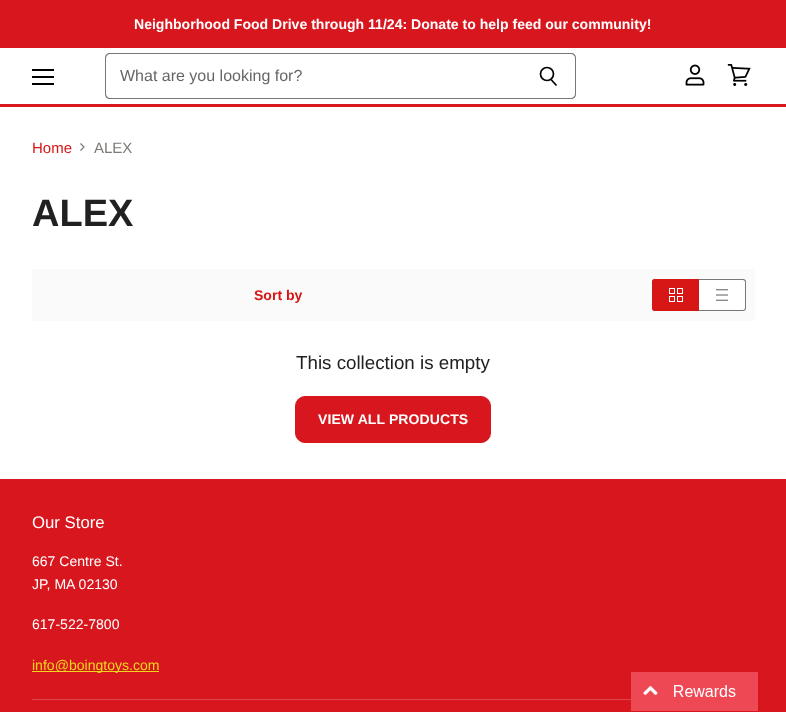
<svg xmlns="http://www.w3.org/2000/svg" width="786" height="712">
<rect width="100%" height="100%" fill="#fff"/>
<rect width="786" height="48" fill="#d8161e"/>
<text x="134" y="29" style="font-family:Liberation Sans;font-size:14.05px;font-weight:bold;fill:#fff">Neighborhood Food Drive through 11/24: Donate to help feed our community!</text>
<rect y="104" width="786" height="3" fill="#d8161e"/>
<rect x="32" y="69" width="22" height="2" fill="#000"/>
<rect x="32" y="76" width="22" height="2" fill="#000"/>
<rect x="32" y="83" width="22" height="2" fill="#000"/>
<path d="M110 53h413v46h-413c-3 0-5-2-5-5v-36c0-3 2-5 5-5zm0 1h413v44h-413c-2 0-4-2-4-4v-36c0-2 2-4 4-4z" fill="#777" fill-rule="evenodd"/>
<text x="120" y="81" style="font-family:Liberation Sans;font-size:16px;fill:#666">What are you looking for?</text>
<path d="M523 53h48c3 0 5 2 5 5v36c0 3-2 5-5 5h-48zm0 1h48c2 0 4 2 4 4v36c0 2-2 4-4 4h-48z" fill="#777" fill-rule="evenodd"/>
<path d="M556.5 85.5l-5.5-6" fill="none" stroke="#000" stroke-width="1.7"/>
<circle cx="547" cy="74" r="6.5" fill="none" stroke="#000" stroke-width="1.7"/>
<image x="685" y="64" width="20" height="22" href="media/1.png"/>
<image x="727" y="64" width="24" height="22" href="media/2.png"/>
<text x="32" y="153" style="font-family:Liberation Sans;font-size:15px;fill:#d71616">Home</text>
<path d="M80.5 150.5l3.5-3.5l-3.5-3.5" fill="none" stroke="#7c7873" stroke-width="1.2"/>
<text x="94" y="153" style="font-family:Liberation Sans;font-size:15px;fill:#7c7873">ALEX</text>
<text x="32" y="226" style="font-family:Liberation Sans;font-size:38px;font-weight:bold;fill:#212121">ALEX</text>
<rect x="32" y="269" width="723" height="52" rx="1.5" fill="#fafafa"/>
<text x="254" y="300" style="font-family:Liberation Sans;font-size:14.05px;font-weight:bold;fill:#d71616">Sort by</text>
<path d="M655 279h44v32h-44c-1.5 0-3-1.5-3-3v-26c0-1.5 1.5-3 3-3z" fill="#d71616"/>
<path d="M655 279h44v32h-44c-2 0-3-1-3-3v-26c0-2 1-3 3-3zm0 1h44v30h-44c-1 0-2-1-2-2v-26c0-1 1-2 2-2z" fill="#d71616" fill-rule="evenodd"/>
<image x="669" y="288" width="14" height="14" href="media/3.png"/>
<path d="M699 279h44c1.5 0 3 1.5 3 3v26c0 1.5-1.5 3-3 3h-44z" fill="#fff"/>
<path d="M699 279h44c2 0 3 1 3 3v26c0 2-1 3-3 3h-44zm0 1h44c1 0 2 1 2 2v26c0 1-1 2-2 2h-44z" fill="#777" fill-rule="evenodd"/>
<image x="716" y="289" width="12" height="12" href="media/4.png"/>
<text x="296" y="369" style="font-family:Liberation Sans;font-size:18.75px;fill:#212121">This collection is empty</text>
<rect x="295.5" y="396.5" width="195" height="46" rx="9.5" fill="#d8161e" stroke="#d8161e"/>
<text x="318" y="424" style="font-family:Liberation Sans;font-size:14px;font-weight:bold;letter-spacing:0.1px;fill:#fff">VIEW ALL PRODUCTS</text>
<rect y="479" width="786" height="233" fill="#d8161e"/>
<rect x="32" y="699" width="599" height="1" fill="#e0454b"/>
<text x="32" y="528" style="font-family:Liberation Sans;font-size:16.75px;fill:#fff">Our Store</text>
<text x="32" y="566" style="font-family:Liberation Sans;font-size:14.05px;fill:#fff">667 Centre St.</text>
<text x="32" y="589" style="font-family:Liberation Sans;font-size:14.05px;fill:#fff">JP, MA 02130</text>
<text x="32" y="629" style="font-family:Liberation Sans;font-size:14.05px;fill:#fff">617-522-7800</text>
<rect x="32" y="671" width="127" height="1" fill="#edd81c"/>
<text x="32" y="670" style="font-family:Liberation Sans;font-size:14.05px;fill:#edd81c">info@boingtoys.com</text>
<image x="631" y="672" width="127" height="39" href="media/5.png"/>
</svg>
